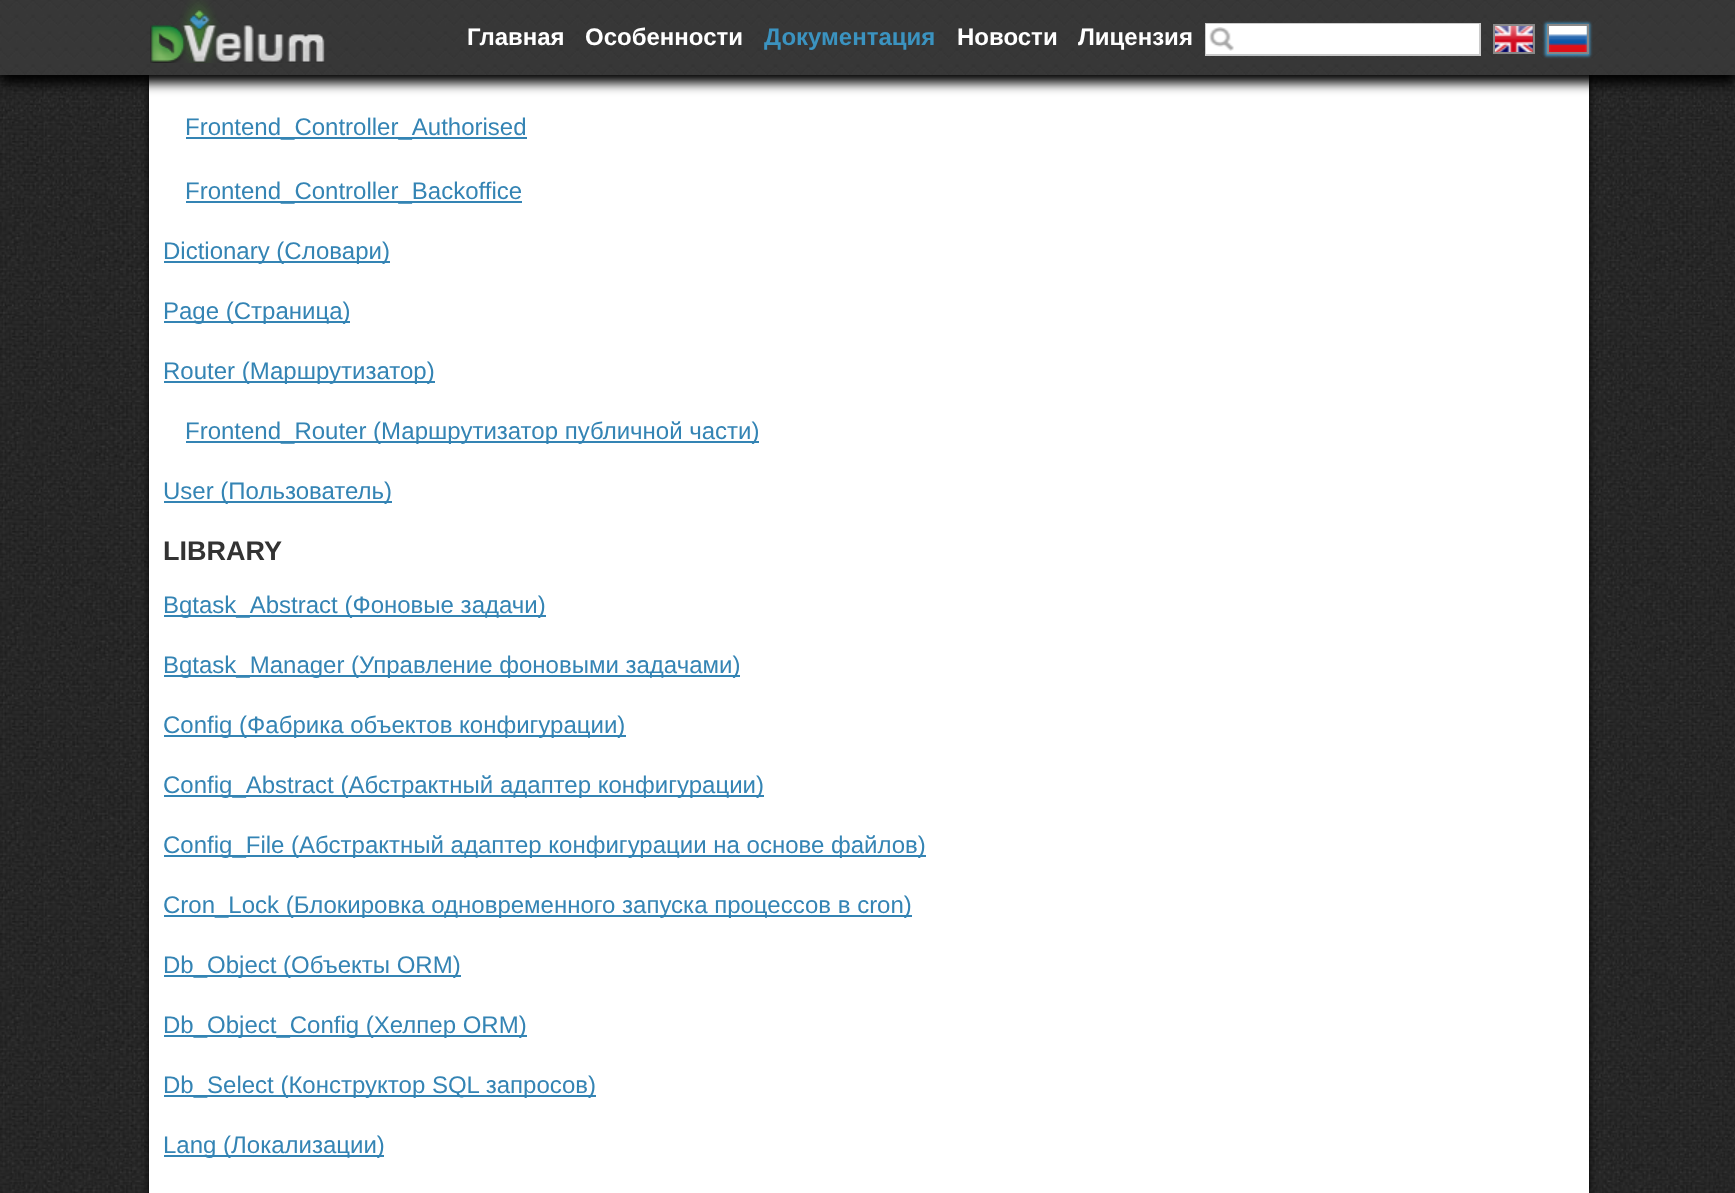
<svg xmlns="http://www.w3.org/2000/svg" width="1735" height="1193">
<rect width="100%" height="100%" fill="#fff"/>
<image x="0" y="75" width="1735" height="1118" href="media/6.png"/>
<rect x="149" y="-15" width="1440" height="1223" rx="6" fill="#000" filter="blur(3px)"/>
<rect x="149" y="75" width="1440" height="1118" fill="#fff"/>
<rect y="8" width="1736" height="75" fill="#000" filter="blur(6px)"/>
<image x="0" y="0" width="1735" height="75" href="media/1.png"/>
<image x="150" y="0" width="175" height="63" href="media/2.png"/>
<text x="467" y="45" style="font-family:Liberation Sans;font-size:24px;font-weight:bold;fill:#fff">Главная</text>
<text x="585" y="45" style="font-family:Liberation Sans;font-size:24px;font-weight:bold;fill:#fff">Особенности</text>
<text x="764" y="45" style="font-family:Liberation Sans;font-size:24px;font-weight:bold;fill:#3b93c0">Документация</text>
<text x="957" y="45" style="font-family:Liberation Sans;font-size:24px;font-weight:bold;fill:#fff">Новости</text>
<text x="1078" y="45" style="font-family:Liberation Sans;font-size:24px;font-weight:bold;fill:#fff">Лицензия</text>
<rect x="1206" y="24" width="274" height="31" fill="none" stroke="#ccc" stroke-width="2"/>
<rect x="1206" y="24" width="273" height="30" fill="#fff"/>
<image x="1209" y="27" width="25" height="24" href="media/3.png"/>
<image x="1495" y="26" width="38" height="26" href="media/4.png"/>
<rect x="1494" y="25" width="40" height="28" fill="none" stroke="#888" stroke-width="2"/>
<rect x="1545" y="23" width="45" height="33" fill="#4294c2" filter="blur(1.5px)"/>
<image x="1549" y="26" width="38" height="26" href="media/5.png"/>
<rect x="1548" y="25" width="40" height="28" fill="none" stroke="#888" stroke-width="2"/>
<rect x="186" y="137" width="341" height="2" fill="#3484b4"/>
<text x="185" y="135" style="font-family:Liberation Sans;font-size:24px;fill:#3484b4">Frontend_Controller_Authorised</text>
<rect x="186" y="201" width="336" height="2" fill="#3484b4"/>
<text x="185" y="199" style="font-family:Liberation Sans;font-size:24px;fill:#3484b4">Frontend_Controller_Backoffice</text>
<rect x="164" y="261" width="226" height="2" fill="#3484b4"/>
<text x="163" y="259" style="font-family:Liberation Sans;font-size:24px;fill:#3484b4">Dictionary (Словари)</text>
<rect x="164" y="321" width="186" height="2" fill="#3484b4"/>
<text x="163" y="319" style="font-family:Liberation Sans;font-size:24px;fill:#3484b4">Page (Страница)</text>
<rect x="164" y="381" width="271" height="2" fill="#3484b4"/>
<text x="163" y="379" style="font-family:Liberation Sans;font-size:24px;fill:#3484b4">Router (Маршрутизатор)</text>
<rect x="186" y="441" width="573" height="2" fill="#3484b4"/>
<text x="185" y="439" style="font-family:Liberation Sans;font-size:24px;fill:#3484b4">Frontend_Router (Маршрутизатор публичной части)</text>
<rect x="164" y="501" width="228" height="2" fill="#3484b4"/>
<text x="163" y="499" style="font-family:Liberation Sans;font-size:24px;fill:#3484b4">User (Пользователь)</text>
<text x="163" y="560" style="font-family:Liberation Sans;font-size:27px;font-weight:bold;fill:#333">LIBRARY</text>
<rect x="164" y="615" width="382" height="2" fill="#3484b4"/>
<text x="163" y="613" style="font-family:Liberation Sans;font-size:24px;fill:#3484b4">Bgtask_Abstract (Фоновые задачи)</text>
<rect x="164" y="675" width="576" height="2" fill="#3484b4"/>
<text x="163" y="673" style="font-family:Liberation Sans;font-size:24px;fill:#3484b4">Bgtask_Manager (Управление фоновыми задачами)</text>
<rect x="164" y="735" width="462" height="2" fill="#3484b4"/>
<text x="163" y="733" style="font-family:Liberation Sans;font-size:24px;fill:#3484b4">Config (Фабрика объектов конфигурации)</text>
<rect x="164" y="795" width="600" height="2" fill="#3484b4"/>
<text x="163" y="793" style="font-family:Liberation Sans;font-size:24px;fill:#3484b4">Config_Abstract (Абстрактный адаптер конфигурации)</text>
<rect x="164" y="855" width="762" height="2" fill="#3484b4"/>
<text x="163" y="853" style="font-family:Liberation Sans;font-size:24px;fill:#3484b4">Config_File (Абстрактный адаптер конфигурации на основе файлов)</text>
<rect x="164" y="915" width="748" height="2" fill="#3484b4"/>
<text x="163" y="913" style="font-family:Liberation Sans;font-size:24px;fill:#3484b4">Cron_Lock (Блокировка одновременного запуска процессов в cron)</text>
<rect x="164" y="975" width="297" height="2" fill="#3484b4"/>
<text x="163" y="973" style="font-family:Liberation Sans;font-size:24px;fill:#3484b4">Db_Object (Объекты ORM)</text>
<rect x="164" y="1035" width="363" height="2" fill="#3484b4"/>
<text x="163" y="1033" style="font-family:Liberation Sans;font-size:24px;fill:#3484b4">Db_Object_Config (Хелпер ORM)</text>
<rect x="164" y="1095" width="432" height="2" fill="#3484b4"/>
<text x="163" y="1093" style="font-family:Liberation Sans;font-size:24px;fill:#3484b4">Db_Select (Конструктор SQL запросов)</text>
<rect x="164" y="1155" width="220" height="2" fill="#3484b4"/>
<text x="163" y="1153" style="font-family:Liberation Sans;font-size:24px;fill:#3484b4">Lang (Локализации)</text>
</svg>
